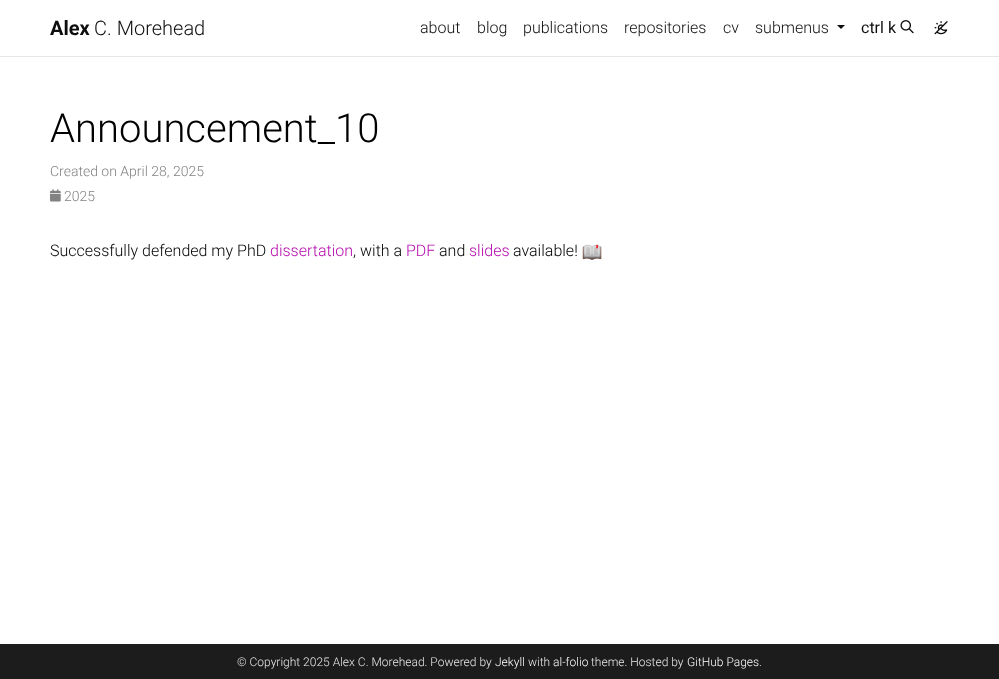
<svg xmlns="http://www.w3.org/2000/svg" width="999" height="679">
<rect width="100%" height="100%" fill="#fff"/>
<rect y="56" width="999" height="1" fill="#e7e7e7"/>
<text x="50" y="35" style="font-family:Roboto;font-size:20px;font-weight:bold;fill:#0d0d0d">Alex</text>
<text x="94" y="35" style="font-family:Roboto;font-size:20px;font-weight:300;fill:#0d0d0d">C. Morehead</text>
<text x="420" y="33" style="font-family:Roboto;font-size:16px;font-weight:300;fill:#0d0d0d">about</text>
<text x="477" y="33" style="font-family:Roboto;font-size:16px;font-weight:300;fill:#0d0d0d">blog</text>
<text x="523" y="33" style="font-family:Roboto;font-size:16px;font-weight:300;fill:#0d0d0d">publications</text>
<text x="624" y="33" style="font-family:Roboto;font-size:16px;font-weight:300;fill:#0d0d0d">repositories</text>
<text x="723" y="33" style="font-family:Roboto;font-size:16px;font-weight:300;fill:#0d0d0d">cv</text>
<text x="755" y="33" style="font-family:Roboto;font-size:16px;font-weight:300;fill:#0d0d0d">submenus</text>
<path d="M837 25h8l-4 4z" fill="#0d0d0d"/>
<text x="861" y="33" style="font-family:Roboto;font-size:16px;fill:#0d0d0d">ctrl k</text>
<image x="900" y="20" width="14" height="14" href="media/1.png"/>
<image x="934" y="21" width="14" height="14" href="media/2.png"/>
<text x="50" y="142" style="font-family:Roboto;font-size:40px;font-weight:300;fill:#000">Announcement_10</text>
<text x="50" y="176" style="font-family:Roboto;font-size:14px;font-weight:300;fill:#828282">Created on April 28, 2025</text>
<image x="50" y="189" width="11" height="13" href="media/3.png"/>
<text x="64" y="201" style="font-family:Roboto;font-size:14px;font-weight:300;fill:#828282">2025</text>
<text x="50" y="256" style="font-family:Roboto;font-size:16px;font-weight:300;fill:#000">Successfully defended my PhD</text>
<text x="270" y="256" style="font-family:Roboto;font-size:16px;font-weight:300;fill:#b509ac">dissertation</text>
<text x="353" y="256" style="font-family:Roboto;font-size:16px;font-weight:300;fill:#000">, with a</text>
<text x="406" y="256" style="font-family:Roboto;font-size:16px;font-weight:300;fill:#b509ac">PDF</text>
<text x="439" y="256" style="font-family:Roboto;font-size:16px;font-weight:300;fill:#000">and</text>
<text x="469" y="256" style="font-family:Roboto;font-size:16px;font-weight:300;fill:#b509ac">slides</text>
<text x="513" y="256" style="font-family:Roboto;font-size:16px;font-weight:300;fill:#000">available!</text>
<image x="582" y="244" width="20" height="16" href="media/4.png"/>
<rect y="644" width="999" height="35" fill="#1c1c1d"/>
<text x="237" y="666" style="font-family:Roboto;font-size:12px;font-weight:300;fill:#e8e8e8">© Copyright 2025 Alex C. Morehead. Powered by</text>
<text x="495" y="666" style="font-family:Roboto;font-size:12px;font-weight:300;fill:#fff">Jekyll</text>
<text x="528" y="666" style="font-family:Roboto;font-size:12px;font-weight:300;fill:#e8e8e8">with</text>
<text x="553" y="666" style="font-family:Roboto;font-size:12px;font-weight:300;fill:#fff">al-folio</text>
<text x="591" y="666" style="font-family:Roboto;font-size:12px;font-weight:300;fill:#e8e8e8">theme. Hosted by</text>
<text x="687" y="666" style="font-family:Roboto;font-size:12px;font-weight:300;fill:#fff">GitHub Pages</text>
<text x="759" y="666" style="font-family:Roboto;font-size:12px;font-weight:300;fill:#e8e8e8">.</text>
</svg>
